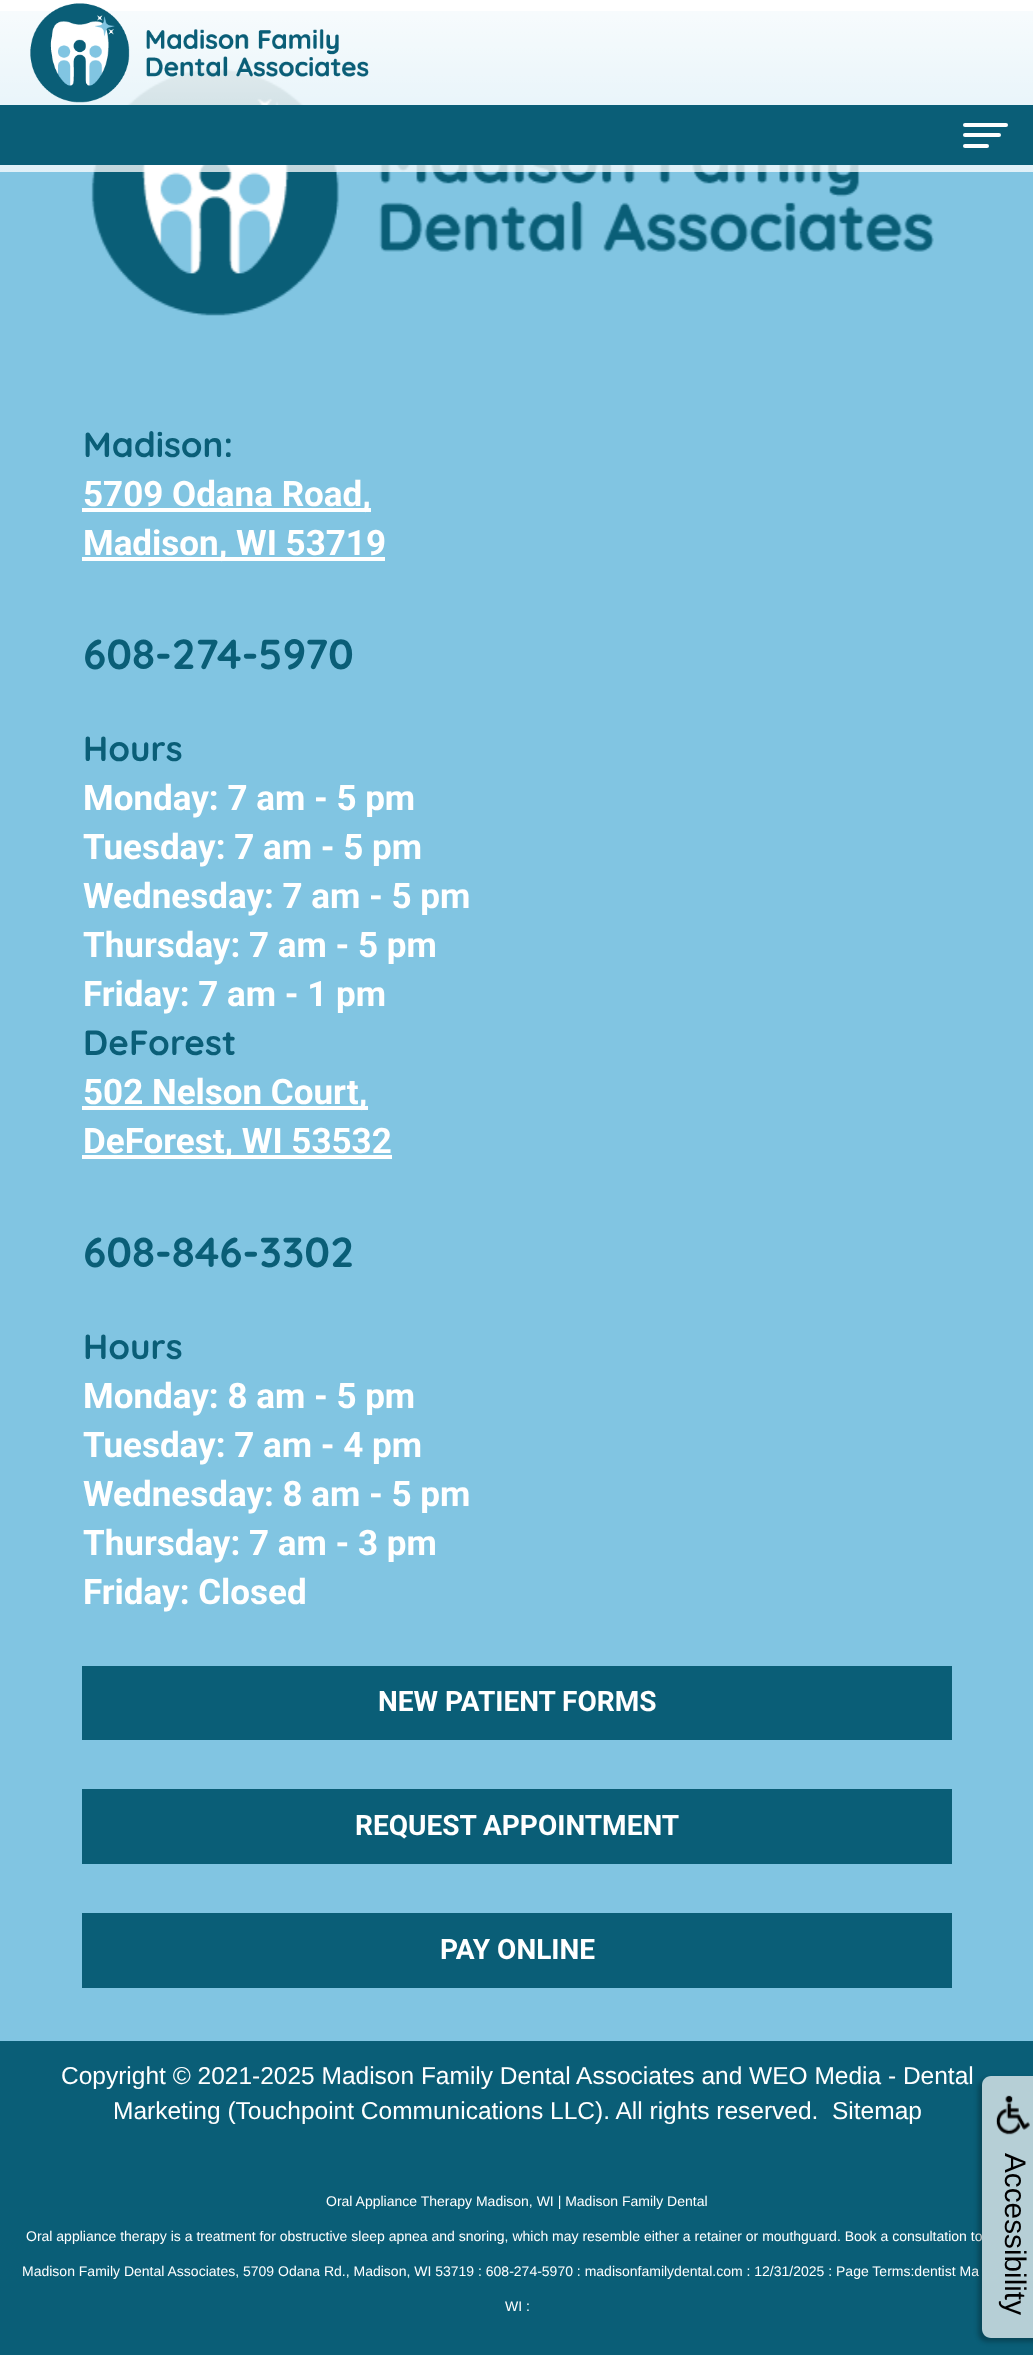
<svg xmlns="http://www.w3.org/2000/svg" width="1033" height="2355">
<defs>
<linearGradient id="g1" gradientUnits="userSpaceOnUse" x1="517" y1="0" x2="517" y2="172"><stop offset="0" stop-color="#fff" stop-opacity="0.95"/><stop offset="1" stop-color="#fff" stop-opacity="0.75"/></linearGradient>
<clipPath id="clip1"><path d="M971 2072h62v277h-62zm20 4h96v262h-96c-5 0-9-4-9-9v-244c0-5 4-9 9-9z" clip-rule="evenodd"/></clipPath>
</defs>
<rect width="100%" height="100%" fill="#fff"/>
<rect y="11" width="1033" height="2030" fill="#81c5e2"/>
<image x="91" y="69" width="843" height="247" href="media/2.png"/>
<rect y="11" width="1033" height="161" fill="url(#g1)"/>
<image x="30" y="3" width="339" height="100" href="media/1.png"/>
<rect y="105" width="1033" height="60" fill="#0a5e77"/>
<rect x="963" y="123" width="45" height="4" rx="2" fill="#fff"/>
<rect x="963" y="133" width="38" height="4" rx="2" fill="#fff"/>
<rect x="963" y="144" width="26" height="4" rx="2" fill="#fff"/>
<text x="83" y="457" style="font-family:Quicksand;font-size:35px;font-weight:bold;fill:#0a5e77">Madison:</text>
<rect x="82" y="508" width="289" height="4" fill="#fff"/>
<text x="83" y="506" style="font-family:Roboto;font-size:35px;font-weight:bold;fill:#fff">5709 Odana Road,</text>
<rect x="82" y="557" width="303" height="4" fill="#fff"/>
<text x="83" y="555" style="font-family:Roboto;font-size:35px;font-weight:bold;fill:#fff">Madison, WI 53719</text>
<text x="83" y="669" style="font-family:Quicksand;font-size:42px;font-weight:bold;fill:#0a5e77">608-274-5970</text>
<text x="83" y="761" style="font-family:Quicksand;font-size:35px;font-weight:bold;fill:#0a5e77">Hours</text>
<text x="83" y="810" style="font-family:Roboto;font-size:35px;font-weight:bold;fill:#fff">Monday: 7 am - 5 pm</text>
<text x="83" y="859" style="font-family:Roboto;font-size:35px;font-weight:bold;fill:#fff">Tuesday: 7 am - 5 pm</text>
<text x="83" y="908" style="font-family:Roboto;font-size:35px;font-weight:bold;fill:#fff">Wednesday: 7 am - 5 pm</text>
<text x="83" y="957" style="font-family:Roboto;font-size:35px;font-weight:bold;fill:#fff">Thursday: 7 am - 5 pm</text>
<text x="83" y="1006" style="font-family:Roboto;font-size:35px;font-weight:bold;fill:#fff">Friday: 7 am - 1 pm</text>
<text x="83" y="1055" style="font-family:Quicksand;font-size:35px;font-weight:bold;fill:#0a5e77">DeForest</text>
<rect x="82" y="1106" width="286" height="4" fill="#fff"/>
<text x="83" y="1104" style="font-family:Roboto;font-size:35px;font-weight:bold;fill:#fff">502 Nelson Court,</text>
<rect x="82" y="1155" width="310" height="4" fill="#fff"/>
<text x="83" y="1153" style="font-family:Roboto;font-size:35px;font-weight:bold;fill:#fff">DeForest, WI 53532</text>
<text x="83" y="1267" style="font-family:Quicksand;font-size:42px;font-weight:bold;fill:#0a5e77">608-846-3302</text>
<text x="83" y="1359" style="font-family:Quicksand;font-size:35px;font-weight:bold;fill:#0a5e77">Hours</text>
<text x="83" y="1408" style="font-family:Roboto;font-size:35px;font-weight:bold;fill:#fff">Monday: 8 am - 5 pm</text>
<text x="83" y="1457" style="font-family:Roboto;font-size:35px;font-weight:bold;fill:#fff">Tuesday: 7 am - 4 pm</text>
<text x="83" y="1506" style="font-family:Roboto;font-size:35px;font-weight:bold;fill:#fff">Wednesday: 8 am - 5 pm</text>
<text x="83" y="1555" style="font-family:Roboto;font-size:35px;font-weight:bold;fill:#fff">Thursday: 7 am - 3 pm</text>
<text x="83" y="1604" style="font-family:Roboto;font-size:35px;font-weight:bold;fill:#fff">Friday: Closed</text>
<rect x="82" y="1666" width="870" height="74" fill="#0a5e77"/>
<text x="378" y="1711" style="font-family:Roboto;font-size:28px;font-weight:bold;fill:#fff">NEW PATIENT FORMS</text>
<rect x="82" y="1789" width="870" height="75" fill="#0a5e77"/>
<text x="355" y="1835" style="font-family:Roboto;font-size:28px;font-weight:bold;fill:#fff">REQUEST APPOINTMENT</text>
<rect x="82" y="1913" width="870" height="75" fill="#0a5e77"/>
<text x="440" y="1959" style="font-family:Roboto;font-size:28px;font-weight:bold;fill:#fff">PAY ONLINE</text>
<rect y="2041" width="1033" height="314" fill="#0a5e77"/>
<text x="61" y="2084" style="font-family:Liberation Sans;font-size:24.5px;fill:#fff">Copyright © 2021-2025 Madison Family Dental Associates and WEO Media - Dental</text>
<text x="113" y="2119" style="font-family:Liberation Sans;font-size:24.5px;fill:#fff">Marketing (Touchpoint Communications LLC). All rights reserved.</text>
<text x="832" y="2119" style="font-family:Liberation Sans;font-size:24.5px;fill:#fff">Sitemap</text>
<text x="326" y="2206" style="font-family:Liberation Sans;font-size:14px;fill:#fff">Oral Appliance Therapy Madison, WI | Madison Family Dental</text>
<text x="26" y="2241" style="font-family:Liberation Sans;font-size:14px;fill:#fff">Oral appliance therapy is a treatment for obstructive sleep apnea and snoring, which may resemble either a retainer or mouthguard. Book a consultation to</text>
<text x="22" y="2276" style="font-family:Liberation Sans;font-size:14px;fill:#fff">Madison Family Dental Associates, 5709 Odana Rd., Madison, WI 53719 : 608-274-5970 : madisonfamilydental.com : 12/31/2025 : Page Terms:dentist Ma</text>
<text x="505" y="2311" style="font-family:Liberation Sans;font-size:14px;fill:#fff">WI :</text>
<g clip-path="url(#clip1)">
<rect x="978" y="2079" width="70" height="263" rx="9" fill="#00000040" filter="blur(2px)"/>
</g>
<path d="M991 2076h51v262h-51c-5 0-9-4-9-9v-244c0-5 4-9 9-9z" fill="#ffffffb3"/>
<image x="996" y="2095" width="34" height="40" href="media/3.png"/>
<text x="1005" y="2153" transform="rotate(90 1005 2153)" style="font-family:Liberation Sans;font-size:29.75px;fill:#000">Accessibility</text>
</svg>
